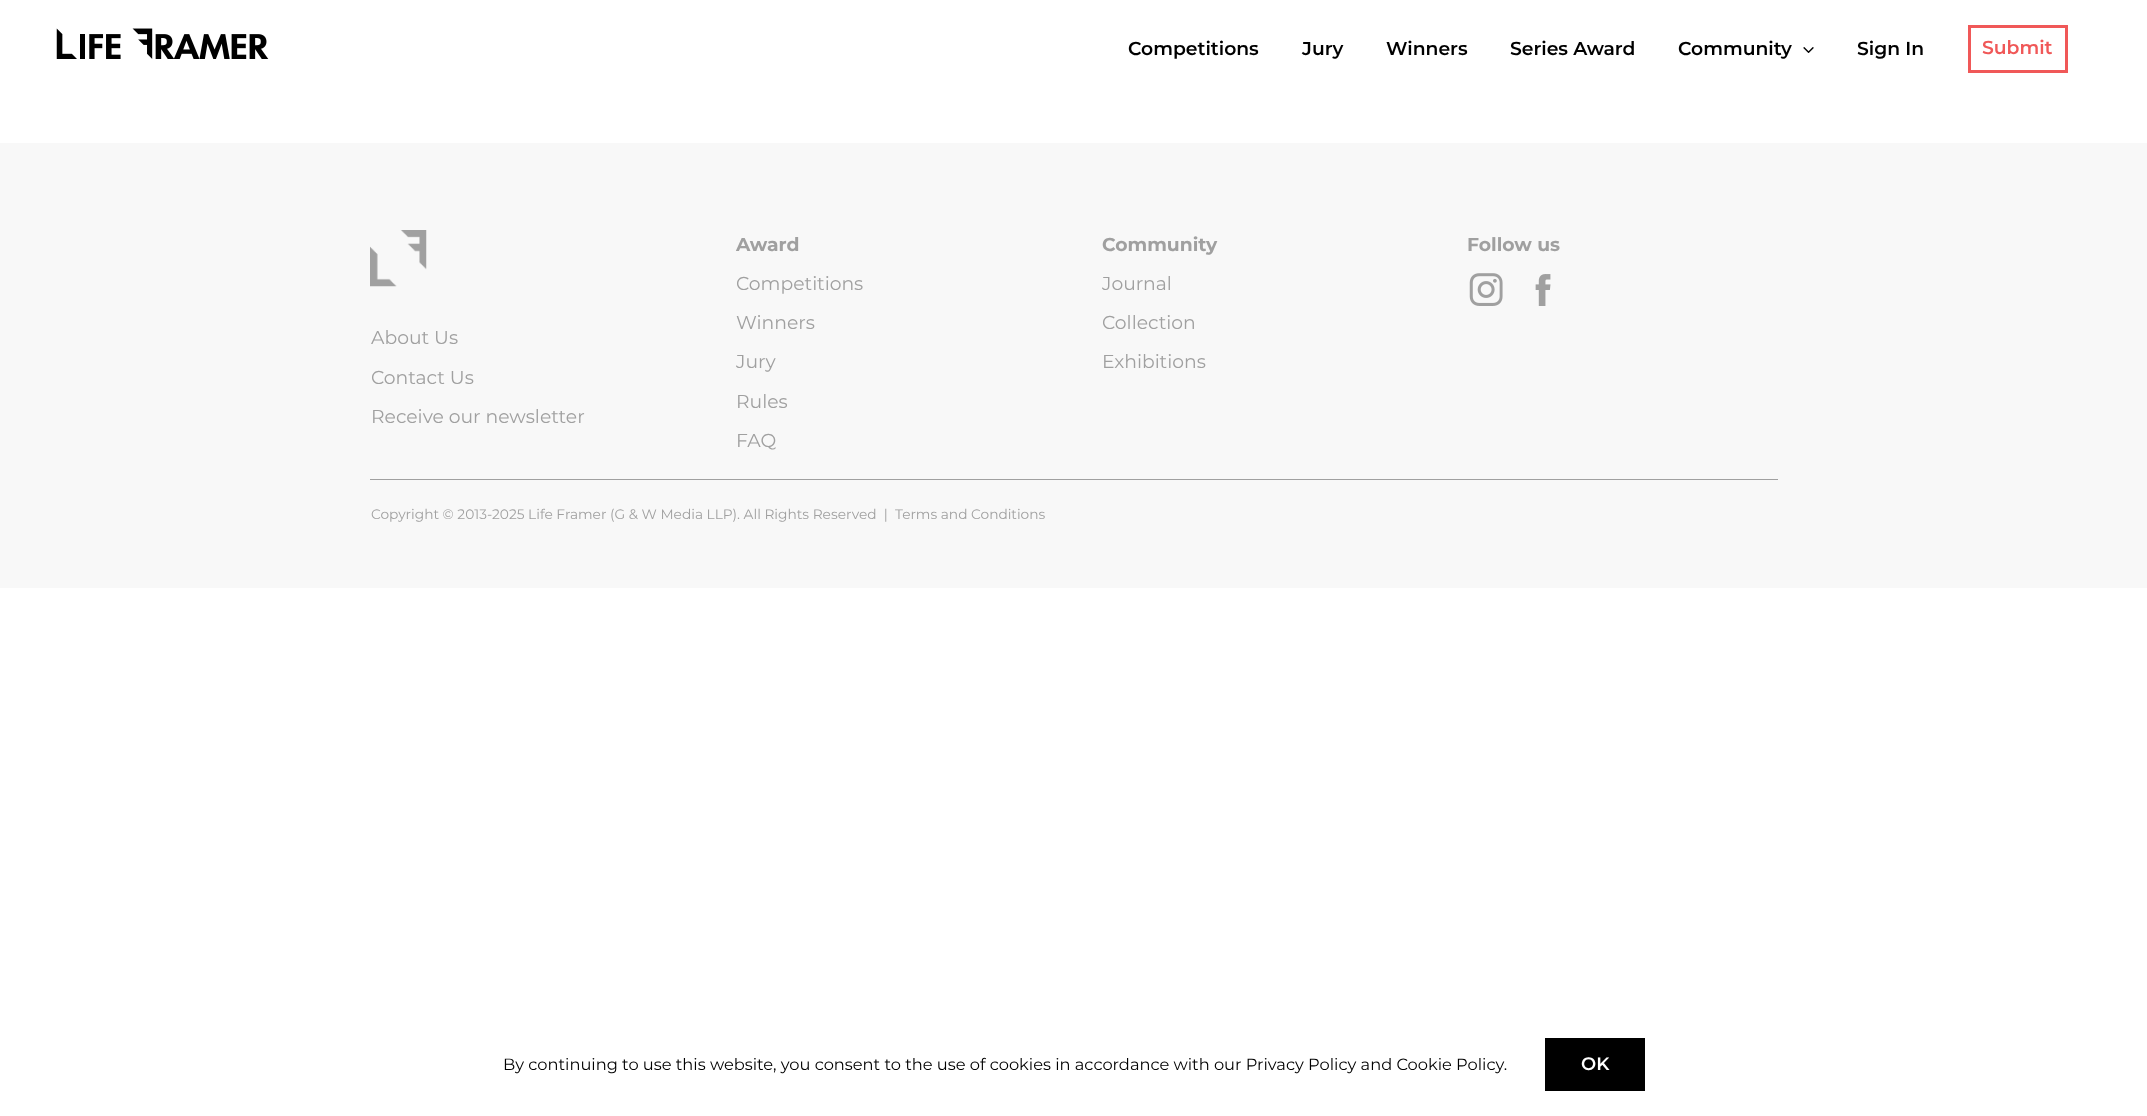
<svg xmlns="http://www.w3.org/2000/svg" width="2147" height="1116">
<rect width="100%" height="100%" fill="#fff"/>
<image x="56" y="28" width="213" height="31" href="media/1.png"/>
<text x="1128" y="55" style="font-family:Montserrat;font-size:18.75px;font-weight:600;fill:#000">Competitions</text>
<text x="1302" y="55" style="font-family:Montserrat;font-size:18.75px;font-weight:600;fill:#000">Jury</text>
<text x="1386" y="55" style="font-family:Montserrat;font-size:18.75px;font-weight:600;fill:#000">Winners</text>
<text x="1510" y="55" style="font-family:Montserrat;font-size:18.75px;font-weight:600;fill:#000">Series Award</text>
<text x="1678" y="55" style="font-family:Montserrat;font-size:18.75px;font-weight:600;fill:#000">Community</text>
<image x="1803" y="47" width="11" height="6" href="media/2.png"/>
<text x="1857" y="55" style="font-family:Montserrat;font-size:18.75px;font-weight:600;fill:#000">Sign In</text>
<rect x="1969.5" y="26.5" width="97" height="45" fill="none" stroke="#f05858" stroke-width="3"/>
<text x="1982" y="54" style="font-family:Montserrat;font-size:18.75px;font-weight:600;fill:#f05858">Submit</text>
<rect y="143" width="2147" height="445" fill="#f8f8f8"/>
<text x="736" y="251" style="font-family:Montserrat;font-size:18.75px;font-weight:bold;fill:#a0a0a0">Award</text>
<text x="736" y="290" style="font-family:Montserrat;font-size:18.75px;fill:#a0a0a0">Competitions</text>
<text x="736" y="329" style="font-family:Montserrat;font-size:18.75px;fill:#a0a0a0">Winners</text>
<text x="736" y="368" style="font-family:Montserrat;font-size:18.75px;fill:#a0a0a0">Jury</text>
<text x="736" y="408" style="font-family:Montserrat;font-size:18.75px;fill:#a0a0a0">Rules</text>
<text x="736" y="447" style="font-family:Montserrat;font-size:18.75px;fill:#a0a0a0">FAQ</text>
<text x="1102" y="251" style="font-family:Montserrat;font-size:18.75px;font-weight:bold;fill:#a0a0a0">Community</text>
<text x="1102" y="290" style="font-family:Montserrat;font-size:18.75px;fill:#a0a0a0">Journal</text>
<text x="1102" y="329" style="font-family:Montserrat;font-size:18.75px;fill:#a0a0a0">Collection</text>
<text x="1102" y="368" style="font-family:Montserrat;font-size:18.75px;fill:#a0a0a0">Exhibitions</text>
<text x="1467" y="251" style="font-family:Montserrat;font-size:18.75px;font-weight:bold;fill:#a0a0a0">Follow us</text>
<image x="1469" y="273" width="34" height="33" href="media/3.png"/>
<image x="1535" y="274" width="16" height="32" href="media/4.png"/>
<image x="370" y="230" width="57" height="57" href="media/5.png"/>
<text x="371" y="344" style="font-family:Montserrat;font-size:18.75px;fill:#a0a0a0">About Us</text>
<text x="371" y="384" style="font-family:Montserrat;font-size:18.75px;fill:#a0a0a0">Contact Us</text>
<text x="371" y="423" style="font-family:Montserrat;font-size:18.75px;fill:#a0a0a0">Receive our newsletter</text>
<rect x="370" y="479" width="1408" height="1" fill="#a0a0a0"/>
<text x="371" y="519" style="font-family:Montserrat;font-size:13.75px;fill:#a0a0a0" xml:space="preserve">Copyright © 2013-2025 Life Framer (G &amp; W Media LLP). All Rights Reserved  |</text>
<text x="895" y="519" style="font-family:Montserrat;font-size:13.75px;fill:#a0a0a0">Terms and Conditions</text>
<text x="503" y="1070" style="font-family:Montserrat;font-size:16.25px;fill:#000">By continuing to use this website, you consent to the use of cookies in accordance with our Privacy Policy and Cookie Policy.</text>
<rect x="1545" y="1038" width="100" height="53" fill="#000"/>
<text x="1581" y="1070" style="font-family:Montserrat;font-size:18px;font-weight:600;fill:#fff">OK</text>
</svg>
